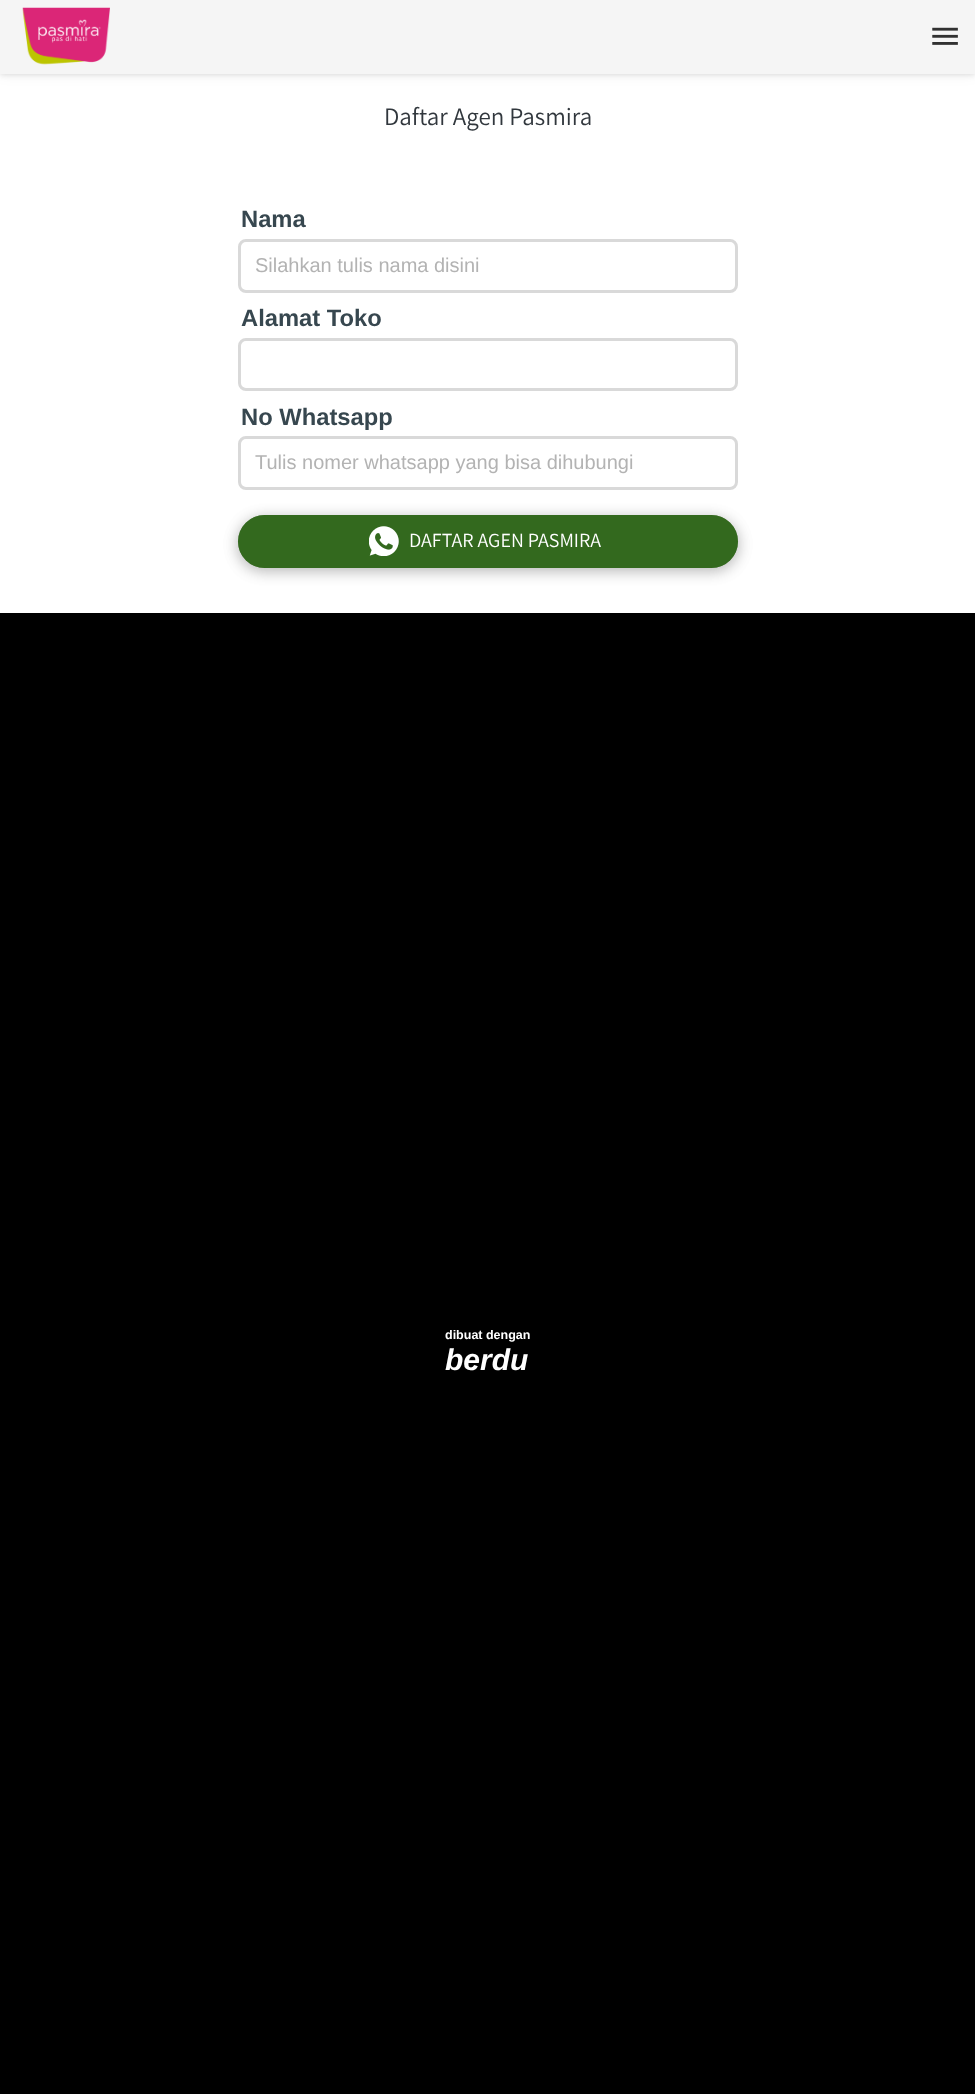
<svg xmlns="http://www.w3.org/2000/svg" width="975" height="2094">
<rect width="100%" height="100%" fill="#fff"/>
<rect y="1" width="975" height="74" fill="#0000001a" filter="blur(2.5px)"/>
<rect y="3" width="975" height="73" fill="#0000000d" filter="blur(6px)"/>
<rect width="975" height="74" fill="#f5f5f5"/>
<image x="22" y="7" width="88" height="58" href="media/1.png"/>
<image x="932" y="27" width="26" height="18" href="media/2.png"/>
<text x="384" y="125" style="font-family:Assistant;font-size:25px;font-weight:200;fill:#31373d">Daftar Agen Pasmira</text>
<text x="241" y="227" style="font-family:Liberation Sans;font-size:23.75px;font-weight:bold;fill:#37474f">Nama</text>
<rect x="239.5" y="240.5" width="497" height="51" rx="6.5" fill="none" stroke="#d9d9d9" stroke-width="3"/>
<text x="255" y="272" style="font-family:Liberation Sans;font-size:20px;fill:#b3b3b3">Silahkan tulis nama disini</text>
<text x="241" y="326" style="font-family:Liberation Sans;font-size:23.75px;font-weight:bold;fill:#37474f">Alamat Toko</text>
<rect x="239.5" y="339.5" width="497" height="50" rx="6.5" fill="none" stroke="#d9d9d9" stroke-width="3"/>
<text x="241" y="425" style="font-family:Liberation Sans;font-size:23.75px;font-weight:bold;fill:#37474f">No Whatsapp</text>
<rect x="239.5" y="437.5" width="497" height="51" rx="6.5" fill="none" stroke="#d9d9d9" stroke-width="3"/>
<text x="255" y="469" style="font-family:Liberation Sans;font-size:20px;fill:#b3b3b3">Tulis nomer whatsapp yang bisa dihubungi</text>
<rect x="238" y="518" width="500" height="52" rx="26" fill="#00000029" filter="blur(7.5px)"/>
<rect x="238" y="519" width="500" height="52" rx="26" fill="#00000029" filter="blur(7.5px)"/>
<rect x="238" y="515" width="500" height="53" rx="26.5" fill="#0000000f" filter="blur(0.5px)"/>
<rect x="238" y="515" width="500" height="53" rx="26.5" fill="#33691e"/>
<rect x="238.5" y="515.5" width="499" height="52" rx="26" fill="none" stroke="#33691e80"/>
<image x="369" y="526" width="30" height="30" href="media/3.png"/>
<text x="409" y="547" style="font-family:Assistant;font-size:20px;font-weight:200;fill:#fff">DAFTAR AGEN PASMIRA</text>
<rect y="613" width="975" height="1481" fill="#000"/>
<text x="445" y="1339" style="font-family:Liberation Sans;font-size:12.5px;font-weight:bold;fill:#fff">dibuat dengan</text>
<text x="445" y="1370" style="font-family:Liberation Sans;font-size:30px;font-weight:bold;font-style:italic;fill:#fff">berdu</text>
</svg>
